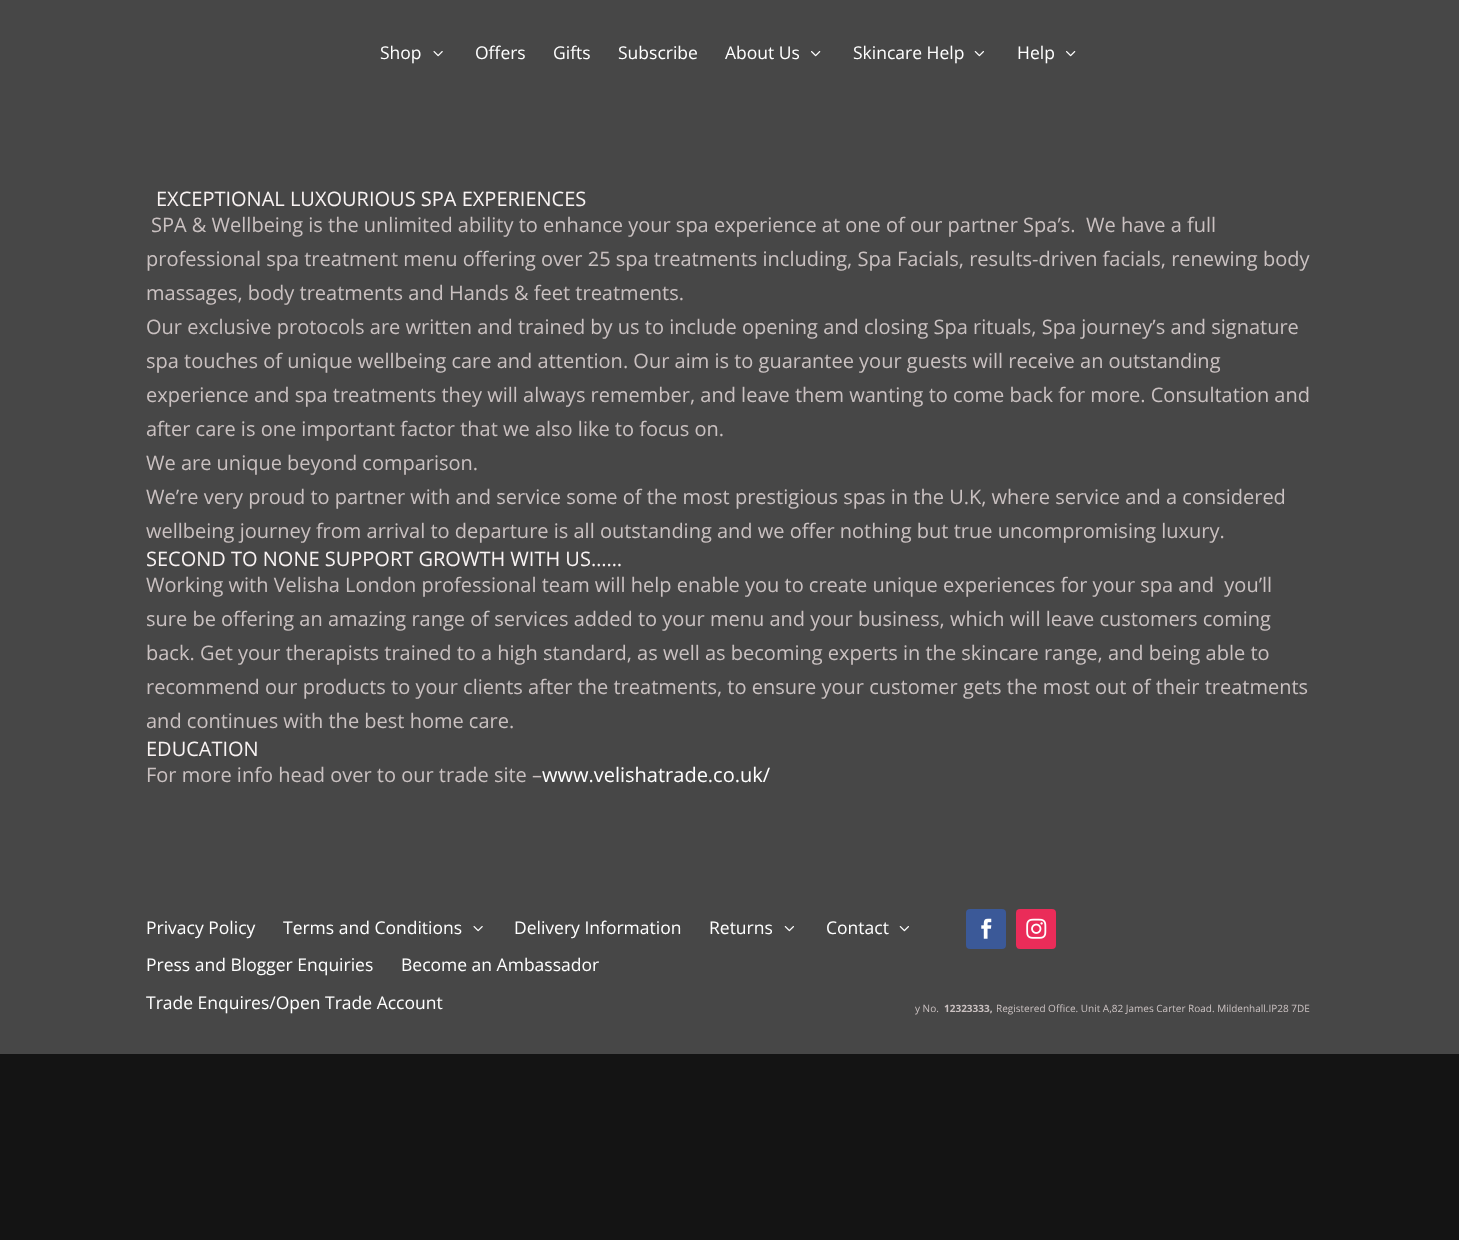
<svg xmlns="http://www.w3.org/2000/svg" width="1459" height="1240">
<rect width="100%" height="100%" fill="#141414"/>
<rect width="1459" height="1054" fill="#474747"/>
<text x="380" y="59" style="font-family:Open Sans;font-size:17.5px;fill:#fff">Shop</text>
<image x="433" y="51" width="10" height="6" href="media/1.png"/>
<text x="475" y="59" style="font-family:Open Sans;font-size:17.5px;fill:#fff">Offers</text>
<text x="553" y="59" style="font-family:Open Sans;font-size:17.5px;fill:#fff">Gifts</text>
<text x="618" y="59" style="font-family:Open Sans;font-size:17.5px;fill:#fff">Subscribe</text>
<text x="725" y="59" style="font-family:Open Sans;font-size:17.5px;fill:#fff">About Us</text>
<image x="811" y="51" width="10" height="6" href="media/2.png"/>
<text x="853" y="59" style="font-family:Open Sans;font-size:17.5px;fill:#fff">Skincare Help</text>
<image x="974" y="51" width="10" height="6" href="media/3.png"/>
<text x="1017" y="59" style="font-family:Open Sans;font-size:17.5px;fill:#fff">Help</text>
<image x="1066" y="51" width="10" height="6" href="media/2.png"/>
<text x="156" y="206" style="font-family:Open Sans;font-size:20px;fill:#f9f3f3">EXCEPTIONAL LUXOURIOUS SPA EXPERIENCES</text>
<text x="151" y="232" style="font-family:Open Sans;font-size:20px;fill:#cac1c1" xml:space="preserve">SPA &amp; Wellbeing is the unlimited ability to enhance your spa experience at one of our partner Spa’s.  We have a full</text>
<text x="146" y="266" style="font-family:Open Sans;font-size:20px;fill:#cac1c1">professional spa treatment menu offering over 25 spa treatments including, Spa Facials, results-driven facials, renewing body</text>
<text x="146" y="300" style="font-family:Open Sans;font-size:20px;fill:#cac1c1">massages, body treatments and Hands &amp; feet treatments.</text>
<text x="146" y="334" style="font-family:Open Sans;font-size:20px;fill:#cac1c1">Our exclusive protocols are written and trained by us to include opening and closing Spa rituals, Spa journey’s and signature</text>
<text x="146" y="368" style="font-family:Open Sans;font-size:20px;fill:#cac1c1">spa touches of unique wellbeing care and attention. Our aim is to guarantee your guests will receive an outstanding</text>
<text x="146" y="402" style="font-family:Open Sans;font-size:20px;fill:#cac1c1">experience and spa treatments they will always remember, and leave them wanting to come back for more. Consultation and</text>
<text x="146" y="436" style="font-family:Open Sans;font-size:20px;fill:#cac1c1">after care is one important factor that we also like to focus on.</text>
<text x="146" y="470" style="font-family:Open Sans;font-size:20px;fill:#cac1c1">We are unique beyond comparison.</text>
<text x="146" y="504" style="font-family:Open Sans;font-size:20px;fill:#cac1c1">We’re very proud to partner with and service some of the most prestigious spas in the U.K, where service and a considered</text>
<text x="146" y="538" style="font-family:Open Sans;font-size:20px;fill:#cac1c1">wellbeing journey from arrival to departure is all outstanding and we offer nothing but true uncompromising luxury.</text>
<text x="146" y="566" style="font-family:Open Sans;font-size:20px;fill:#f9f3f3">SECOND TO NONE SUPPORT GROWTH WITH US……</text>
<text x="146" y="592" style="font-family:Open Sans;font-size:20px;fill:#cac1c1" xml:space="preserve">Working with Velisha London professional team will help enable you to create unique experiences for your spa and  you’ll</text>
<text x="146" y="626" style="font-family:Open Sans;font-size:20px;fill:#cac1c1">sure be offering an amazing range of services added to your menu and your business, which will leave customers coming</text>
<text x="146" y="660" style="font-family:Open Sans;font-size:20px;fill:#cac1c1">back. Get your therapists trained to a high standard, as well as becoming experts in the skincare range, and being able to</text>
<text x="146" y="694" style="font-family:Open Sans;font-size:20px;fill:#cac1c1">recommend our products to your clients after the treatments, to ensure your customer gets the most out of their treatments</text>
<text x="146" y="728" style="font-family:Open Sans;font-size:20px;fill:#cac1c1">and continues with the best home care.</text>
<text x="146" y="756" style="font-family:Open Sans;font-size:20px;fill:#f9f3f3">EDUCATION</text>
<text x="146" y="782" style="font-family:Open Sans;font-size:20px;fill:#cac1c1">For more info head over to our trade site –</text>
<text x="542" y="782" style="font-family:Open Sans;font-size:20px;fill:#fff">www.velishatrade.co.uk/</text>
<text x="146" y="934" style="font-family:Open Sans;font-size:17.5px;fill:#fff">Privacy Policy</text>
<text x="283" y="934" style="font-family:Open Sans;font-size:17.5px;fill:#fff">Terms and Conditions</text>
<image x="473" y="926" width="10" height="6" href="media/1.png"/>
<text x="514" y="934" style="font-family:Open Sans;font-size:17.5px;fill:#fff">Delivery Information</text>
<text x="709" y="934" style="font-family:Open Sans;font-size:17.5px;fill:#fff">Returns</text>
<image x="784" y="926" width="10" height="6" href="media/3.png"/>
<text x="826" y="934" style="font-family:Open Sans;font-size:17.5px;fill:#fff">Contact</text>
<image x="899" y="926" width="10" height="6" href="media/3.png"/>
<text x="146" y="971" style="font-family:Open Sans;font-size:17.5px;fill:#fff">Press and Blogger Enquiries</text>
<text x="401" y="971" style="font-family:Open Sans;font-size:17.5px;fill:#fff">Become an Ambassador</text>
<text x="146" y="1009" style="font-family:Open Sans;font-size:17.5px;fill:#fff">Trade Enquires/Open Trade Account</text>
<rect x="966" y="909" width="40" height="40" rx="4" fill="#3b5998"/>
<image x="981" y="918" width="11" height="21" href="media/4.png"/>
<rect x="1016" y="909" width="40" height="40" rx="4" fill="#ea2c59"/>
<image x="1026" y="918" width="21" height="21" href="media/5.png"/>
<text x="915" y="1012" style="font-family:Open Sans;font-size:10px;fill:#cac1c1">y No.</text>
<text x="944" y="1012" style="font-family:Open Sans;font-size:10px;font-weight:bold;fill:#cac1c1">12323333,</text>
<text x="996" y="1012" style="font-family:Open Sans;font-size:10px;fill:#cac1c1">Registered Office. Unit A,82 James Carter Road. Mildenhall.IP28 7DE</text>
</svg>
